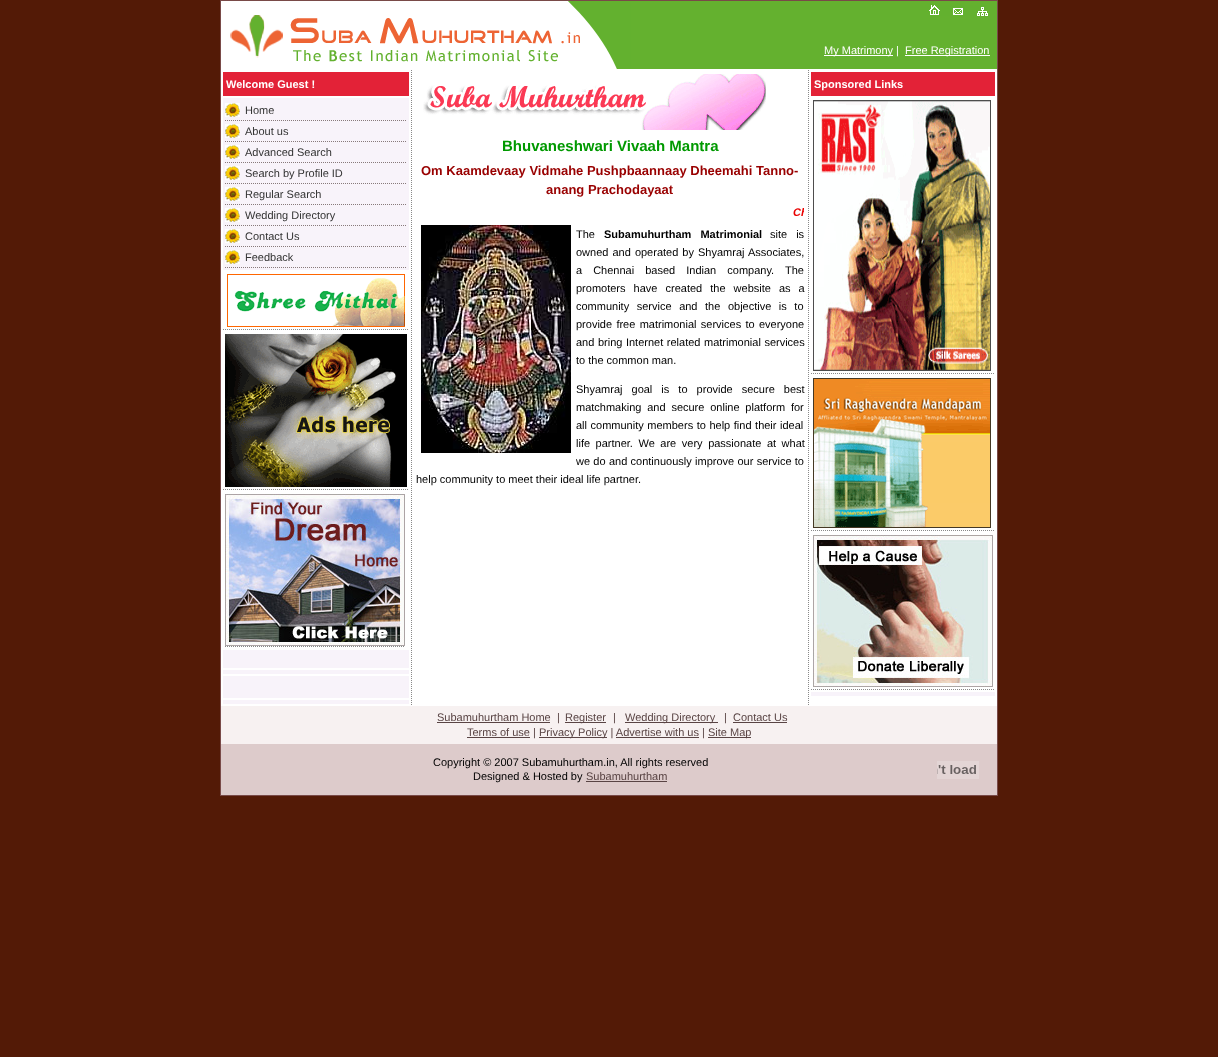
<svg xmlns="http://www.w3.org/2000/svg" width="1218" height="1057">
<defs>
<clipPath id="clip1"><rect x="416" y="205" width="388" height="14"/></clipPath>
</defs>
<rect width="100%" height="100%" fill="#531a06"/>
<rect x="221" y="70" width="776" height="636" fill="#fff"/>
<rect x="220.5" y="0.5" width="777" height="795" fill="none" stroke="#794a48"/>
<rect x="631" y="1" width="366" height="68" fill="#64b12f"/>
<image x="221" y="1" width="209" height="69" href="media/1.png"/>
<image x="430" y="1" width="201" height="69" href="media/2.png"/>
<rect x="631" y="69" width="366" height="1" fill="#fff"/>
<image x="929" y="5" width="59" height="11" href="media/3.png"/>
<rect x="824" y="55" width="69" height="1" fill="#fff"/>
<text x="824" y="54" style="font-family:Liberation Sans;font-size:11px;fill:#fff">My Matrimony |</text>
<rect x="905" y="55" width="85" height="1" fill="#fff"/>
<text x="905" y="54" style="font-family:Liberation Sans;font-size:11px;fill:#fff">Free Registration</text>
<path d="M411.5 70v636" fill="none" stroke="#898989" stroke-dasharray="1 1"/>
<rect x="223" y="72" width="186" height="24" fill="#e32237"/>
<text x="226" y="88" style="font-family:Liberation Sans;font-size:11px;font-weight:bold;fill:#fff">Welcome Guest !</text>
<rect x="223" y="98" width="186" height="172" fill="#f8f3fa"/>
<path d="M225 120.5h182" fill="none" stroke="#887a7b" stroke-dasharray="1 1"/>
<image x="225" y="103" width="15" height="14" href="media/4.png"/>
<text x="245" y="114" style="font-family:Liberation Sans;font-size:11px;fill:#333">Home</text>
<path d="M225 141.5h182" fill="none" stroke="#887a7b" stroke-dasharray="1 1"/>
<image x="225" y="124" width="15" height="14" href="media/4.png"/>
<text x="245" y="135" style="font-family:Liberation Sans;font-size:11px;fill:#333">About us</text>
<path d="M225 162.5h182" fill="none" stroke="#887a7b" stroke-dasharray="1 1"/>
<image x="225" y="145" width="15" height="14" href="media/4.png"/>
<text x="245" y="156" style="font-family:Liberation Sans;font-size:11px;fill:#333">Advanced Search</text>
<path d="M225 183.5h182" fill="none" stroke="#887a7b" stroke-dasharray="1 1"/>
<image x="225" y="166" width="15" height="14" href="media/4.png"/>
<text x="245" y="177" style="font-family:Liberation Sans;font-size:11px;fill:#333">Search by Profile ID</text>
<path d="M225 204.5h182" fill="none" stroke="#887a7b" stroke-dasharray="1 1"/>
<image x="225" y="187" width="15" height="14" href="media/4.png"/>
<text x="245" y="198" style="font-family:Liberation Sans;font-size:11px;fill:#333">Regular Search</text>
<path d="M225 225.5h182" fill="none" stroke="#887a7b" stroke-dasharray="1 1"/>
<image x="225" y="208" width="15" height="14" href="media/4.png"/>
<text x="245" y="219" style="font-family:Liberation Sans;font-size:11px;fill:#333">Wedding Directory</text>
<path d="M225 246.5h182" fill="none" stroke="#887a7b" stroke-dasharray="1 1"/>
<image x="225" y="229" width="15" height="14" href="media/4.png"/>
<text x="245" y="240" style="font-family:Liberation Sans;font-size:11px;fill:#333">Contact Us</text>
<path d="M225 267.5h182" fill="none" stroke="#887a7b" stroke-dasharray="1 1"/>
<image x="225" y="250" width="15" height="14" href="media/4.png"/>
<text x="245" y="261" style="font-family:Liberation Sans;font-size:11px;fill:#333">Feedback</text>
<path d="M223 329.5h186" fill="none" stroke="#898989" stroke-dasharray="1 1"/>
<image x="227" y="274" width="178" height="53" href="media/5.png"/>
<path d="M223 489.5h186" fill="none" stroke="#898989" stroke-dasharray="1 1"/>
<image x="225" y="334" width="182" height="153" href="media/6.png"/>
<image x="225" y="494" width="180" height="152" href="media/7.png"/>
<path d="M225 646.5h180" fill="none" stroke="#898989" stroke-dasharray="1 1"/>
<rect x="223" y="650" width="186" height="18" fill="#f8f3fa"/>
<rect x="223" y="670" width="186" height="4" fill="#f8f3fa"/>
<rect x="223" y="676" width="186" height="22" fill="#f8f3fa"/>
<rect x="223" y="700" width="186" height="4" fill="#f8f3fa"/>
<rect x="811" y="72" width="184" height="24" fill="#e32237"/>
<text x="814" y="88" style="font-family:Liberation Sans;font-size:11px;font-weight:bold;fill:#fff">Sponsored Links</text>
<path d="M811 373.5h184" fill="none" stroke="#898989" stroke-dasharray="1 1"/>
<image x="813" y="100" width="178" height="271" href="media/8.png"/>
<path d="M811 530.5h184" fill="none" stroke="#898989" stroke-dasharray="1 1"/>
<image x="813" y="378" width="178" height="150" href="media/9.png"/>
<path d="M811 689.5h184" fill="none" stroke="#898989" stroke-dasharray="1 1"/>
<image x="813" y="535" width="180" height="152" href="media/10.png"/>
<rect x="811" y="692" width="184" height="4" fill="#f8f3fa"/>
<path d="M808.5 70v636" fill="none" stroke="#898989" stroke-dasharray="1 1"/>
<image x="423" y="74" width="343" height="56" href="media/11.png"/>
<text x="502" y="151" style="font-family:Liberation Sans;font-size:15px;font-weight:bold;fill:#090">Bhuvaneshwari Vivaah Mantra</text>
<text x="421" y="175" style="font-family:Liberation Sans;font-size:13px;font-weight:bold;fill:#900">Om Kaamdevaay Vidmahe Pushpbaannaay Dheemahi Tanno-</text>
<text x="546" y="194" style="font-family:Liberation Sans;font-size:13px;font-weight:bold;fill:#900">anang Prachodayaat</text>
<g clip-path="url(#clip1)">
<text x="793" y="216" style="font-family:Liberation Sans;font-size:11px;font-weight:bold;font-style:italic;fill:#e90000">Ch</text>
</g>
<image x="421" y="225" width="150" height="228" href="media/12.png"/>
<text x="576" y="238" style="font-family:Liberation Sans;font-size:11px;fill:#000">The</text>
<text x="604" y="238" word-spacing="6" style="font-family:Liberation Sans;font-size:11px;font-weight:bold;fill:#000">Subamuhurtham Matrimonial</text>
<text x="770" y="238" word-spacing="6" style="font-family:Liberation Sans;font-size:11px;fill:#000">site is</text>
<text x="576" y="256" word-spacing="1" style="font-family:Liberation Sans;font-size:11px;fill:#000">owned and operated by Shyamraj Associates,</text>
<text x="576" y="274" word-spacing="8" style="font-family:Liberation Sans;font-size:11px;fill:#000">a Chennai based Indian company. The</text>
<text x="576" y="292" word-spacing="5" style="font-family:Liberation Sans;font-size:11px;fill:#000">promoters have created the website as a</text>
<text x="576" y="310" word-spacing="4.5" style="font-family:Liberation Sans;font-size:11px;fill:#000">community service and the objective is to</text>
<text x="576" y="328" word-spacing="1.25" style="font-family:Liberation Sans;font-size:11px;fill:#000">provide free matrimonial services to everyone</text>
<text x="576" y="346" word-spacing="0.5" style="font-family:Liberation Sans;font-size:11px;fill:#000">and bring Internet related matrimonial services</text>
<text x="576" y="364" style="font-family:Liberation Sans;font-size:11px;fill:#000">to the common man.</text>
<text x="576" y="393" word-spacing="6" style="font-family:Liberation Sans;font-size:11px;fill:#000">Shyamraj goal is to provide secure best</text>
<text x="576" y="411" word-spacing="2.75" style="font-family:Liberation Sans;font-size:11px;fill:#000">matchmaking and secure online platform for</text>
<text x="576" y="429" word-spacing="0.5" style="font-family:Liberation Sans;font-size:11px;fill:#000">all community members to help find their ideal</text>
<text x="576" y="447" word-spacing="2.5" style="font-family:Liberation Sans;font-size:11px;fill:#000">life partner. We are very passionate at what</text>
<text x="576" y="465" word-spacing="0.25" style="font-family:Liberation Sans;font-size:11px;fill:#000">we do and continuously improve our service to</text>
<text x="416" y="483" style="font-family:Liberation Sans;font-size:11px;fill:#000">help community to meet their ideal life partner.</text>
<rect x="221" y="706" width="776" height="38" fill="#f7f1f1"/>
<text x="437" y="721" style="font-family:Liberation Sans;font-size:11px;fill:#594444">Subamuhurtham Home</text>
<rect x="437" y="722" width="113" height="1" fill="#594444"/>
<text x="557" y="721" style="font-family:Liberation Sans;font-size:11px;fill:#594444">|</text>
<rect x="565" y="722" width="41" height="1" fill="#594444"/>
<text x="565" y="721" style="font-family:Liberation Sans;font-size:11px;fill:#594444">Register</text>
<text x="613" y="721" style="font-family:Liberation Sans;font-size:11px;fill:#594444">|</text>
<rect x="625" y="722" width="93" height="1" fill="#594444"/>
<text x="625" y="721" style="font-family:Liberation Sans;font-size:11px;fill:#594444">Wedding Directory</text>
<text x="724" y="721" style="font-family:Liberation Sans;font-size:11px;fill:#594444">|</text>
<text x="733" y="721" style="font-family:Liberation Sans;font-size:11px;fill:#594444">Contact Us</text>
<rect x="733" y="722" width="54" height="1" fill="#594444"/>
<rect x="467" y="737" width="63" height="1" fill="#594444"/>
<text x="467" y="736" style="font-family:Liberation Sans;font-size:11px;fill:#594444">Terms of use |</text>
<rect x="539" y="737" width="68" height="1" fill="#594444"/>
<text x="539" y="736" style="font-family:Liberation Sans;font-size:11px;fill:#594444">Privacy Policy | Advertise with us |</text>
<rect x="708" y="737" width="43" height="1" fill="#594444"/>
<text x="708" y="736" style="font-family:Liberation Sans;font-size:11px;fill:#594444">Site Map</text>
<rect x="616" y="737" width="83" height="1" fill="#594444"/>
<rect x="221" y="744" width="776" height="51" fill="#ddcbcb"/>
<text x="433" y="766" style="font-family:Liberation Sans;font-size:11px;fill:#000">Copyright © 2007 Subamuhurtham.in, All rights reserved</text>
<text x="473" y="780" style="font-family:Liberation Sans;font-size:11px;fill:#000">Designed &amp; Hosted by</text>
<text x="586" y="780" style="font-family:Liberation Sans;font-size:11px;fill:#594444">Subamuhurtham</text>
<rect x="586" y="781" width="81" height="1" fill="#594444"/>
<image x="937" y="761" width="42" height="18" href="media/13.png"/>
</svg>
